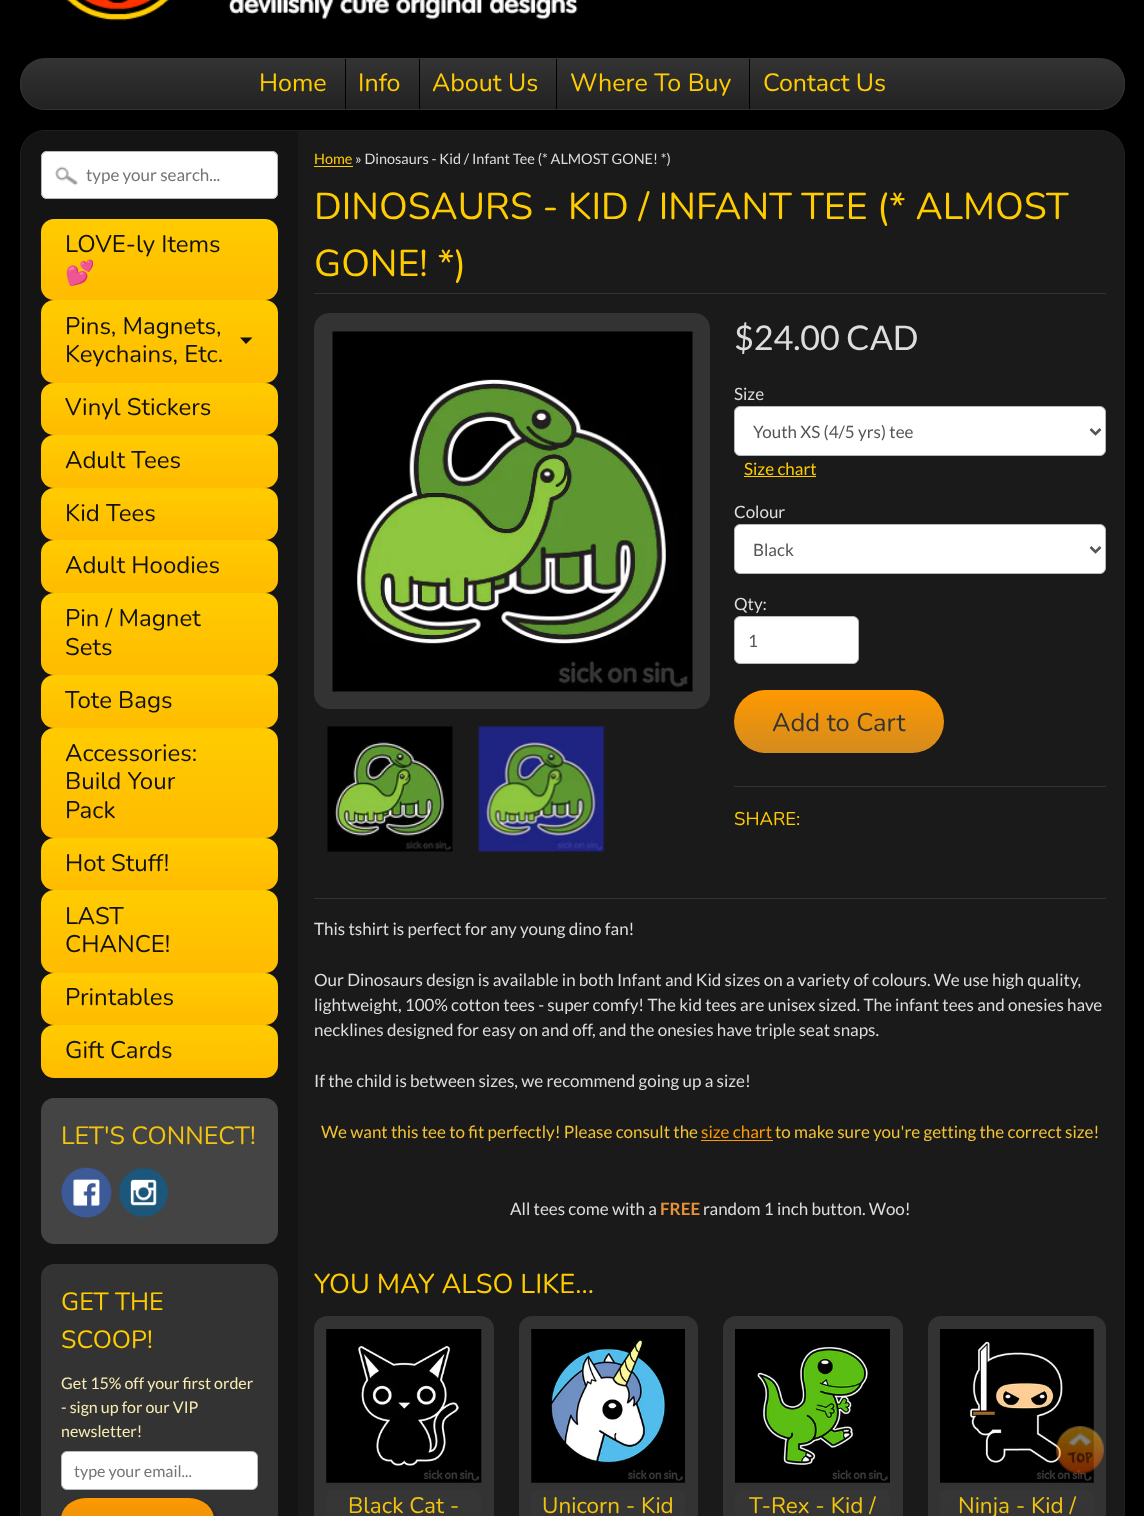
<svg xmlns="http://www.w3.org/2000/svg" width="1144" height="1516">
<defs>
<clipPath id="clip1"><rect x="20" y="58" width="1105" height="52" rx="25"/></clipPath>
<linearGradient id="g1" gradientUnits="userSpaceOnUse" x1="573" y1="59" x2="573" y2="109"><stop offset="0" stop-color="#333"/><stop offset="1" stop-color="#222"/></linearGradient>
<linearGradient id="g2" gradientUnits="userSpaceOnUse" x1="159" y1="219" x2="159" y2="300"><stop offset="0" stop-color="#fc0"/><stop offset="1" stop-color="#fb0"/></linearGradient>
<linearGradient id="g3" gradientUnits="userSpaceOnUse" x1="159" y1="300" x2="159" y2="383"><stop offset="0" stop-color="#fc0"/><stop offset="1" stop-color="#fb0"/></linearGradient>
<linearGradient id="g4" gradientUnits="userSpaceOnUse" x1="159" y1="383" x2="159" y2="435"><stop offset="0" stop-color="#fc0"/><stop offset="1" stop-color="#fb0"/></linearGradient>
<linearGradient id="g5" gradientUnits="userSpaceOnUse" x1="159" y1="435" x2="159" y2="488"><stop offset="0" stop-color="#fc0"/><stop offset="1" stop-color="#fb0"/></linearGradient>
<linearGradient id="g6" gradientUnits="userSpaceOnUse" x1="159" y1="488" x2="159" y2="540"><stop offset="0" stop-color="#fc0"/><stop offset="1" stop-color="#fb0"/></linearGradient>
<linearGradient id="g7" gradientUnits="userSpaceOnUse" x1="159" y1="540" x2="159" y2="593"><stop offset="0" stop-color="#fc0"/><stop offset="1" stop-color="#fb0"/></linearGradient>
<linearGradient id="g8" gradientUnits="userSpaceOnUse" x1="159" y1="593" x2="159" y2="675"><stop offset="0" stop-color="#fc0"/><stop offset="1" stop-color="#fb0"/></linearGradient>
<linearGradient id="g9" gradientUnits="userSpaceOnUse" x1="159" y1="675" x2="159" y2="728"><stop offset="0" stop-color="#fc0"/><stop offset="1" stop-color="#fb0"/></linearGradient>
<linearGradient id="g10" gradientUnits="userSpaceOnUse" x1="159" y1="728" x2="159" y2="838"><stop offset="0" stop-color="#fc0"/><stop offset="1" stop-color="#fb0"/></linearGradient>
<linearGradient id="g11" gradientUnits="userSpaceOnUse" x1="159" y1="838" x2="159" y2="890"><stop offset="0" stop-color="#fc0"/><stop offset="1" stop-color="#fb0"/></linearGradient>
<linearGradient id="g12" gradientUnits="userSpaceOnUse" x1="159" y1="890" x2="159" y2="973"><stop offset="0" stop-color="#fc0"/><stop offset="1" stop-color="#fb0"/></linearGradient>
<linearGradient id="g13" gradientUnits="userSpaceOnUse" x1="159" y1="973" x2="159" y2="1025"><stop offset="0" stop-color="#fc0"/><stop offset="1" stop-color="#fb0"/></linearGradient>
<linearGradient id="g14" gradientUnits="userSpaceOnUse" x1="159" y1="1025" x2="159" y2="1078"><stop offset="0" stop-color="#fc0"/><stop offset="1" stop-color="#fb0"/></linearGradient>
<linearGradient id="g15" gradientUnits="userSpaceOnUse" x1="138" y1="1498" x2="138" y2="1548"><stop offset="0" stop-color="#f90"/><stop offset="1" stop-color="#d48b1e"/></linearGradient>
<linearGradient id="g16" gradientUnits="userSpaceOnUse" x1="839" y1="690" x2="839" y2="753"><stop offset="0" stop-color="#f90"/><stop offset="1" stop-color="#d48b1e"/></linearGradient>
<linearGradient id="g17" gradientUnits="userSpaceOnUse" x1="404" y1="1490" x2="404" y2="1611"><stop offset="0" stop-color="#363636"/><stop offset="1" stop-color="#333"/></linearGradient>
<linearGradient id="g18" gradientUnits="userSpaceOnUse" x1="608" y1="1490" x2="608" y2="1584"><stop offset="0" stop-color="#363636"/><stop offset="1" stop-color="#333"/></linearGradient>
<linearGradient id="g19" gradientUnits="userSpaceOnUse" x1="813" y1="1490" x2="813" y2="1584"><stop offset="0" stop-color="#363636"/><stop offset="1" stop-color="#333"/></linearGradient>
<linearGradient id="g20" gradientUnits="userSpaceOnUse" x1="1017" y1="1490" x2="1017" y2="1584"><stop offset="0" stop-color="#363636"/><stop offset="1" stop-color="#333"/></linearGradient>
</defs>
<rect width="100%" height="100%" fill="#000"/>
<image x="66" y="0" width="512" height="21" href="media/1.png"/>
<g clip-path="url(#clip1)">
<rect x="20" y="59" width="1105" height="50" fill="url(#g1)"/>
</g>
<rect x="20.5" y="58.5" width="1104" height="51" rx="24.5" fill="none" stroke="#333"/>
<text x="259" y="91" style="font-family:Nunito;font-size:25px;fill:#fc0">Home</text>
<rect x="345" y="59" width="1" height="50" fill="#000"/>
<text x="358" y="91" style="font-family:Nunito;font-size:25px;fill:#fc0">Info</text>
<rect x="419" y="59" width="1" height="50" fill="#000"/>
<text x="432" y="91" style="font-family:Nunito;font-size:25px;fill:#fc0">About Us</text>
<rect x="556" y="59" width="1" height="50" fill="#000"/>
<text x="570" y="91" style="font-family:Nunito;font-size:25px;fill:#fc0">Where To Buy</text>
<rect x="749" y="59" width="1" height="50" fill="#000"/>
<text x="763" y="91" style="font-family:Nunito;font-size:25px;fill:#fc0">Contact Us</text>
<rect x="20" y="130" width="1105" height="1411" rx="25" fill="#1a1a1a"/>
<rect x="20.5" y="130.5" width="1104" height="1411" rx="24.5" fill="none" stroke="#222222b3"/>
<path d="M45 131h253v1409h-277v-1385c0-13.5 10.5-24 24-24z" fill="#141414"/>
<rect x="41" y="151" width="237" height="48" rx="6" fill="#fff"/>
<image x="55" y="166" width="23" height="20" href="media/2.png"/>
<rect x="41.5" y="151.5" width="236" height="47" rx="5.5" fill="none" stroke="#b2b9bd"/>
<text x="86" y="181" style="font-family:Lato;font-size:17px;fill:#757575">type your search...</text>
<rect x="41" y="219" width="237" height="81" rx="13" fill="url(#g2)"/>
<text x="65" y="252" style="font-family:Nunito;font-size:24px;fill:#111">LOVE-ly Items</text>
<text x="65" y="281" style="font-family:Noto Color Emoji;font-size:24px;fill:#111">💕</text>
<rect x="41" y="300" width="237" height="83" rx="13" fill="url(#g3)"/>
<text x="65" y="334" style="font-family:Nunito;font-size:24px;fill:#111">Pins, Magnets,</text>
<path d="M240 337.5h12.5l-6.5 6.5z" fill="#111"/>
<text x="65" y="362" style="font-family:Nunito;font-size:24px;fill:#111">Keychains, Etc.</text>
<rect x="41" y="383" width="237" height="52" rx="13" fill="url(#g4)"/>
<text x="65" y="415" style="font-family:Nunito;font-size:24px;fill:#111">Vinyl Stickers</text>
<rect x="41" y="435" width="237" height="53" rx="13" fill="url(#g5)"/>
<text x="65" y="468" style="font-family:Nunito;font-size:24px;fill:#111">Adult Tees</text>
<rect x="41" y="488" width="237" height="52" rx="13" fill="url(#g6)"/>
<text x="65" y="521" style="font-family:Nunito;font-size:24px;fill:#111">Kid Tees</text>
<rect x="41" y="540" width="237" height="53" rx="13" fill="url(#g7)"/>
<text x="65" y="573" style="font-family:Nunito;font-size:24px;fill:#111">Adult Hoodies</text>
<rect x="41" y="593" width="237" height="82" rx="13" fill="url(#g8)"/>
<text x="65" y="626" style="font-family:Nunito;font-size:24px;fill:#111">Pin / Magnet</text>
<text x="65" y="655" style="font-family:Nunito;font-size:24px;fill:#111">Sets</text>
<rect x="41" y="675" width="237" height="53" rx="13" fill="url(#g9)"/>
<text x="65" y="708" style="font-family:Nunito;font-size:24px;fill:#111">Tote Bags</text>
<rect x="41" y="728" width="237" height="110" rx="13" fill="url(#g10)"/>
<text x="65" y="761" style="font-family:Nunito;font-size:24px;fill:#111">Accessories:</text>
<text x="65" y="789" style="font-family:Nunito;font-size:24px;fill:#111">Build Your</text>
<text x="65" y="818" style="font-family:Nunito;font-size:24px;fill:#111">Pack</text>
<rect x="41" y="838" width="237" height="52" rx="13" fill="url(#g11)"/>
<text x="65" y="871" style="font-family:Nunito;font-size:24px;fill:#111">Hot Stuff!</text>
<rect x="41" y="890" width="237" height="83" rx="13" fill="url(#g12)"/>
<text x="65" y="924" style="font-family:Nunito;font-size:24px;fill:#111">LAST</text>
<text x="65" y="952" style="font-family:Nunito;font-size:24px;fill:#111">CHANCE!</text>
<rect x="41" y="973" width="237" height="52" rx="13" fill="url(#g13)"/>
<text x="65" y="1005" style="font-family:Nunito;font-size:24px;fill:#111">Printables</text>
<rect x="41" y="1025" width="237" height="53" rx="13" fill="url(#g14)"/>
<text x="65" y="1058" style="font-family:Nunito;font-size:24px;fill:#111">Gift Cards</text>
<rect x="41" y="1098" width="237" height="146" rx="13" fill="#444"/>
<text x="61" y="1144" style="font-family:Nunito;font-size:25px;fill:#f1c40f">LET'S CONNECT!</text>
<image x="61" y="1167" width="51" height="51" href="media/3.png"/>
<image x="118" y="1167" width="50" height="50" href="media/4.png"/>
<rect x="41" y="1264" width="237" height="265" rx="13" fill="#333"/>
<text x="61" y="1310" style="font-family:Nunito;font-size:25px;fill:#fc0">GET THE</text>
<text x="61" y="1348" style="font-family:Nunito;font-size:25px;fill:#fc0">SCOOP!</text>
<text x="61" y="1389" style="font-family:Lato;font-size:16px;fill:#f7ecb1">Get 15% off your first order</text>
<text x="61" y="1413" style="font-family:Lato;font-size:16px;fill:#f7ecb1">- sign up for our VIP</text>
<text x="61" y="1437" style="font-family:Lato;font-size:16px;fill:#f7ecb1">newsletter!</text>
<rect x="61.5" y="1451.5" width="196" height="38" rx="5.5" fill="#fff" stroke="#b2b9bd"/>
<text x="74" y="1477" style="font-family:Lato;font-size:16px;fill:#757575">type your email...</text>
<rect x="65" y="1501" width="153" height="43" rx="25" fill="#00000033" filter="blur(1px)"/>
<rect x="61" y="1498" width="153" height="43" rx="25" fill="url(#g15)"/>
<text x="314" y="164" style="font-family:Lato;font-size:14.45px;fill:#fc0">Home</text>
<rect x="314" y="166" width="39" height="1" fill="#fc0"/>
<text x="355" y="164" style="font-family:Lato;font-size:14.45px;fill:#ddd">» Dinosaurs - Kid / Infant Tee (* ALMOST GONE! *)</text>
<rect x="314" y="293" width="792" height="1" fill="#333"/>
<text x="314" y="219" style="font-family:Nunito;font-size:37.4px;fill:#fc0">DINOSAURS - KID / INFANT TEE (* ALMOST</text>
<text x="314" y="276" style="font-family:Nunito;font-size:37.4px;fill:#fc0">GONE! *)</text>
<rect x="314.5" y="313.5" width="395" height="395" rx="14.5" fill="#333" stroke="#333"/>
<image x="332" y="331" width="361" height="361" href="media/5.png"/>
<image x="327" y="726" width="126" height="126" href="media/6.png"/>
<image x="478" y="726" width="127" height="126" href="media/7.png"/>
<text x="734" y="350" style="font-family:Lato;font-size:34px;fill:#ddd">$24.00 CAD</text>
<text x="734" y="400" style="font-family:Lato;font-size:17px;fill:#ddd">Size</text>
<rect x="734.5" y="406.5" width="371" height="49" rx="5.5" fill="#fff" stroke="#b2b9bd"/>
<path d="M1090.5 429l5 5l5-5" fill="none" stroke="#555" stroke-width="2.5"/>
<text x="753" y="438" style="font-family:Lato;font-size:17px;fill:#555">Youth XS (4/5 yrs) tee</text>
<text x="744" y="475" style="font-family:Lato;font-size:17px;fill:#fc0">Size chart</text>
<rect x="744" y="476" width="72" height="1" fill="#fc0"/>
<text x="734" y="518" style="font-family:Lato;font-size:17px;fill:#ddd">Colour</text>
<rect x="734.5" y="524.5" width="371" height="49" rx="5.5" fill="#fff" stroke="#b2b9bd"/>
<path d="M1090.5 547l5 5l5-5" fill="none" stroke="#555" stroke-width="2.5"/>
<text x="753" y="556" style="font-family:Lato;font-size:17px;fill:#555">Black</text>
<text x="734" y="610" style="font-family:Lato;font-size:17px;fill:#ddd">Qty:</text>
<rect x="734.5" y="616.5" width="124" height="47" rx="5.5" fill="#fff" stroke="#b2b9bd"/>
<text x="748" y="647" style="font-family:Lato;font-size:17px;fill:#555">1</text>
<rect x="734" y="690" width="210" height="63" rx="31.5" fill="url(#g16)"/>
<text x="772" y="731" style="font-family:Nunito;font-size:25.5px;fill:#333">Add to Cart</text>
<rect x="734" y="786" width="372" height="1" fill="#333"/>
<text x="734" y="825" style="font-family:Nunito;font-size:18.5px;fill:#fc0">SHARE:</text>
<rect x="314" y="898" width="792" height="1" fill="#333"/>
<text x="314" y="935" style="font-family:Lato;font-size:17px;fill:#ddd">This tshirt is perfect for any young dino fan!</text>
<text x="314" y="986" style="font-family:Lato;font-size:17px;fill:#ddd">Our Dinosaurs design is available in both Infant and Kid sizes on a variety of colours. We use high quality,</text>
<text x="314" y="1011" style="font-family:Lato;font-size:17px;fill:#ddd">lightweight, 100% cotton tees - super comfy! The kid tees are unisex sized. The infant tees and onesies have</text>
<text x="314" y="1036" style="font-family:Lato;font-size:17px;fill:#ddd">necklines designed for easy on and off, and the onesies have triple seat snaps.</text>
<text x="314" y="1087" style="font-family:Lato;font-size:17px;fill:#ddd">If the child is between sizes, we recommend going up a size!</text>
<text x="321" y="1138" style="font-family:Lato;font-size:17px;fill:#f1c232">We want this tee to fit perfectly! Please consult the</text>
<text x="701" y="1138" style="font-family:Lato;font-size:17px;fill:#f90">size chart</text>
<text x="775" y="1138" style="font-family:Lato;font-size:17px;fill:#f1c232">to make sure you're getting the correct size!</text>
<rect x="701" y="1140" width="72" height="1" fill="#f90"/>
<text x="510" y="1215" style="font-family:Lato;font-size:17px;fill:#ddd">All tees come with a</text>
<text x="660" y="1215" style="font-family:Lato;font-size:17px;font-weight:bold;fill:#e69138">FREE</text>
<text x="703" y="1215" style="font-family:Lato;font-size:17px;fill:#ddd">random 1 inch button. Woo!</text>
<text x="314" y="1293" style="font-family:Nunito;font-size:27.25px;fill:#fc0">YOU MAY ALSO LIKE...</text>
<rect x="314" y="1316" width="180" height="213" rx="13" fill="#333"/>
<image x="326" y="1329" width="156" height="154" href="media/8.png"/>
<rect x="326" y="1490" width="155" height="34" rx="8" fill="url(#g17)"/>
<text x="348" y="1513" style="font-family:Nunito;font-size:22.5px;fill:#f1c40f">Black Cat -</text>
<rect x="519" y="1316" width="179" height="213" rx="13" fill="#333"/>
<image x="531" y="1329" width="154" height="154" href="media/9.png"/>
<rect x="531" y="1490" width="154" height="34" rx="8" fill="url(#g18)"/>
<text x="542" y="1513" style="font-family:Nunito;font-size:22.5px;fill:#f1c40f">Unicorn - Kid</text>
<rect x="723" y="1316" width="180" height="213" rx="13" fill="#333"/>
<image x="735" y="1329" width="155" height="154" href="media/10.png"/>
<rect x="735" y="1490" width="155" height="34" rx="8" fill="url(#g19)"/>
<text x="749" y="1513" style="font-family:Nunito;font-size:22.5px;fill:#f1c40f">T-Rex - Kid /</text>
<rect x="928" y="1316" width="178" height="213" rx="13" fill="#333"/>
<image x="940" y="1329" width="154" height="154" href="media/11.png"/>
<rect x="940" y="1490" width="154" height="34" rx="8" fill="url(#g20)"/>
<text x="958" y="1513" style="font-family:Nunito;font-size:22.5px;fill:#f1c40f">Ninja - Kid /</text>
<image x="1056" y="1426" width="48" height="49" href="media/12.png"/>
</svg>
